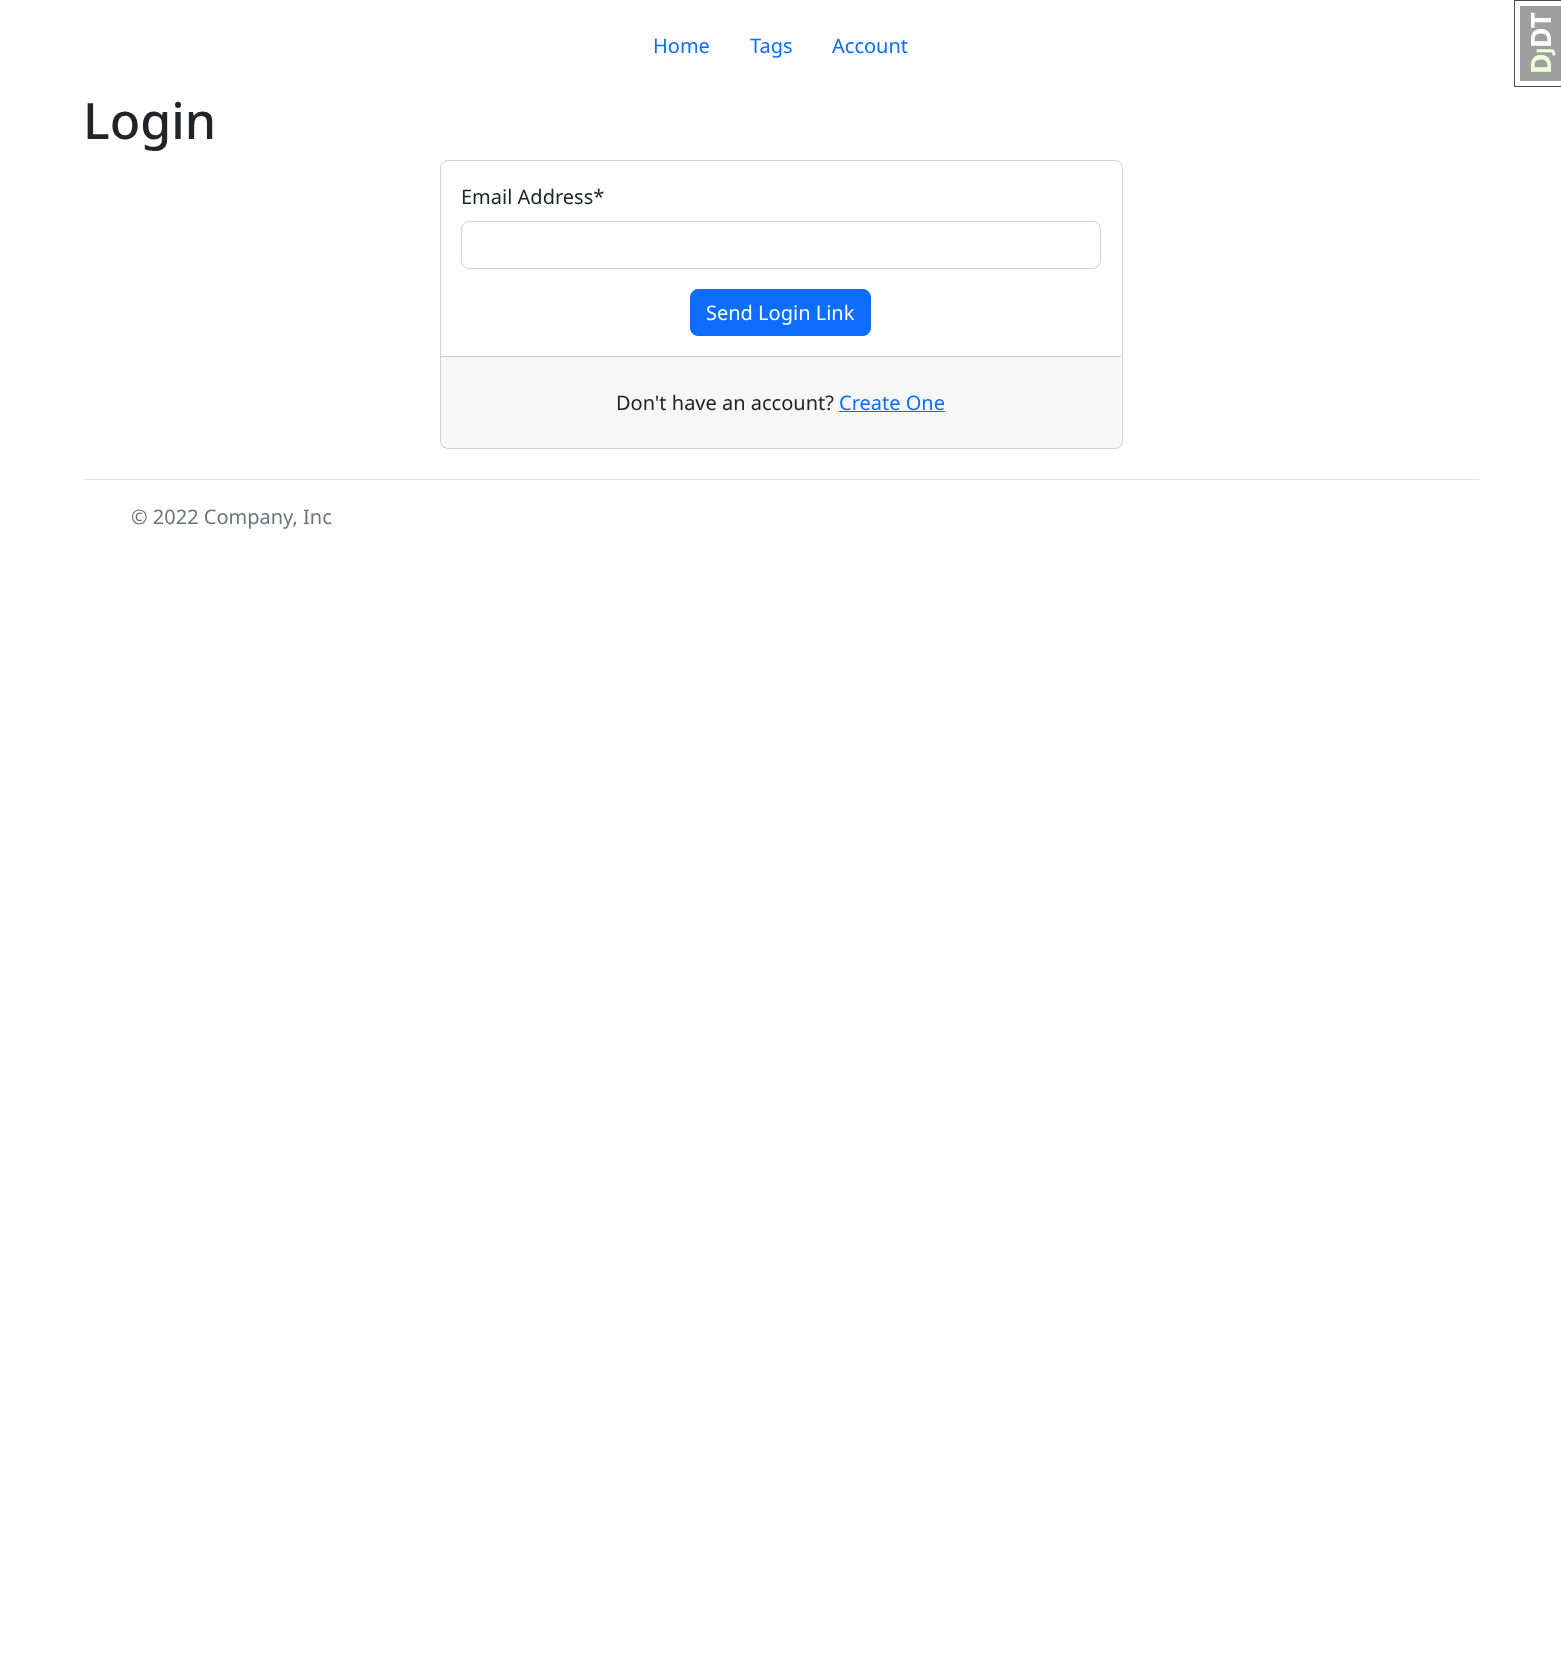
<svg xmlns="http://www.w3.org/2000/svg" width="1561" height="1672">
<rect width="100%" height="100%" fill="#fff"/>
<text x="653" y="53" style="font-family:Noto Sans;font-size:20px;fill:#0d6efd">Home</text>
<text x="750" y="53" style="font-family:Noto Sans;font-size:20px;fill:#0d6efd">Tags</text>
<text x="832" y="53" style="font-family:Noto Sans;font-size:20px;fill:#0d6efd">Account</text>
<rect x="1514" width="1" height="87" fill="#4d4d4d"/>
<rect x="1514" width="47" height="1" fill="#4d4d4d"/>
<rect x="1514" y="86" width="47" height="1" fill="#4d4d4d"/>
<rect x="1520" y="6" width="41" height="75" fill="#9f9f9f"/>
<text x="1551" y="48" transform="rotate(-90 1551 48)" style="font-family:Noto Sans;font-size:28px;font-weight:bold;fill:#fff">DT</text>
<text x="1551" y="54" transform="rotate(-90 1551 54)" style="font-family:Noto Sans;font-size:20px;font-weight:bold;fill:#ecffd9">J</text>
<text x="1551" y="74" transform="rotate(-90 1551 74)" style="font-family:Noto Sans;font-size:28px;font-weight:bold;fill:#ecffd9">D</text>
<text x="83" y="139" style="font-family:Noto Sans;font-size:50px;font-weight:500;fill:#212529">Login</text>
<rect x="440.5" y="160.5" width="682" height="288" rx="7.5" fill="none" stroke="#d2d2d2"/>
<text x="461" y="204" style="font-family:Noto Sans;font-size:20px;fill:#212529">Email Address*</text>
<rect x="461.5" y="221.5" width="639" height="47" rx="7.5" fill="none" stroke="#ced4da"/>
<rect x="690.5" y="289.5" width="180" height="46" rx="7.5" fill="#0d6efd" stroke="#0d6efd"/>
<text x="706" y="320" style="font-family:Noto Sans;font-size:20px;fill:#fff">Send Login Link</text>
<rect x="441" y="357" width="680" height="91" fill="#00000008"/>
<rect x="441" y="356" width="680" height="1" fill="#ccc"/>
<text x="616" y="410" style="font-family:Noto Sans;font-size:20px;fill:#212529">Don't have an account?</text>
<text x="839" y="410" style="font-family:Noto Sans;font-size:20px;fill:#0d6efd">Create One</text>
<rect x="839" y="411" width="106" height="1" fill="#0d6efd"/>
<rect x="84" y="479" width="1395" height="1" fill="#dee2e6"/>
<text x="131" y="524" style="font-family:Noto Sans;font-size:20px;fill:#6c757d">© 2022 Company, Inc</text>
</svg>
